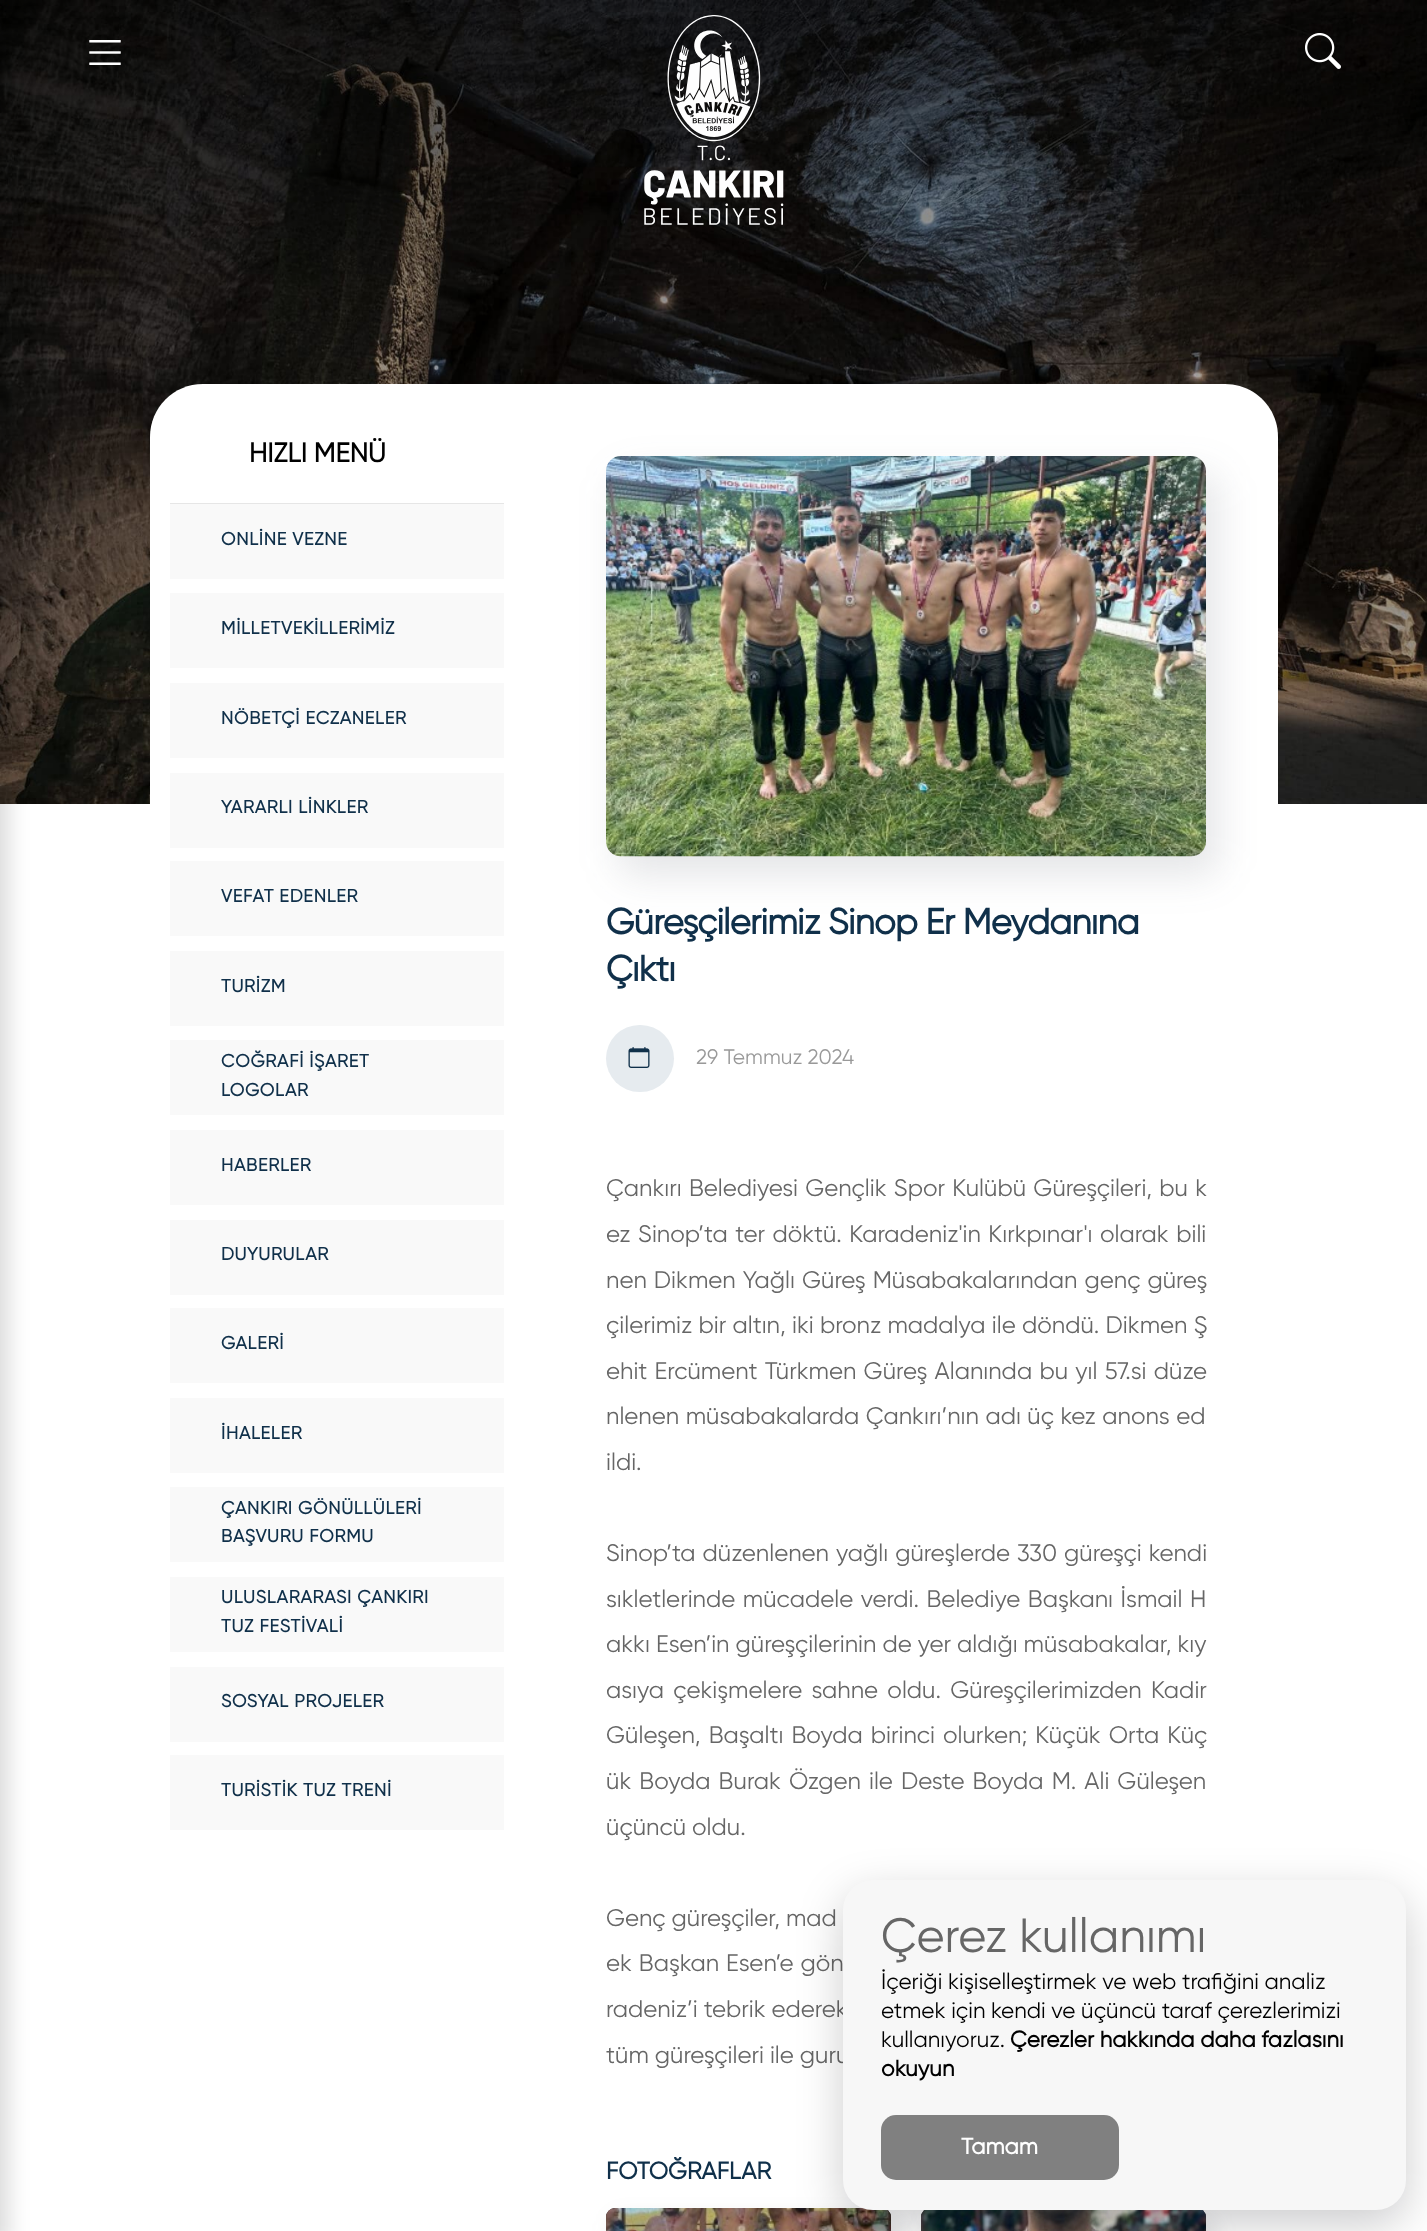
<svg xmlns="http://www.w3.org/2000/svg" width="1427" height="2231">
<rect width="100%" height="100%" fill="#fff"/>
<image x="0" y="0" width="1427" height="804" href="media/1.png"/>
<rect x="-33" y="15" width="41" height="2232" fill="#00000026" filter="blur(11px)"/>
<image x="644" y="15" width="140" height="210" href="media/2.png"/>
<image x="89" y="40" width="32" height="25" href="media/3.png"/>
<image x="1305" y="33" width="36" height="36" href="media/4.png"/>
<path d="M203 384h331v1485h-331c-29.5 0-53-23.5-53-53v-1379c0-29.5 23.5-53 53-53z" fill="#fff"/>
<rect x="170" y="503" width="334" height="1" fill="#e6e6e6"/>
<text x="249" y="462" style="font-family:Gilroy;font-size:27px;font-weight:bold;fill:#000">HIZLI MENÜ</text>
<rect x="170" y="504" width="334" height="75" fill="#f9f9f9"/>
<text x="221" y="545" style="font-family:Gilroy;font-size:18px;font-weight:bold;letter-spacing:0.75px;fill:#10304a">ONLİNE VEZNE</text>
<rect x="170" y="593" width="334" height="75" fill="#f9f9f9"/>
<text x="221" y="634" style="font-family:Gilroy;font-size:18px;font-weight:bold;letter-spacing:0.75px;fill:#10304a">MİLLETVEKİLLERİMİZ</text>
<rect x="170" y="683" width="334" height="75" fill="#f9f9f9"/>
<text x="221" y="724" style="font-family:Gilroy;font-size:18px;font-weight:bold;letter-spacing:0.75px;fill:#10304a">NÖBETÇİ ECZANELER</text>
<rect x="170" y="773" width="334" height="75" fill="#f9f9f9"/>
<text x="221" y="813" style="font-family:Gilroy;font-size:18px;font-weight:bold;letter-spacing:0.75px;fill:#10304a">YARARLI LİNKLER</text>
<rect x="170" y="861" width="334" height="75" fill="#f9f9f9"/>
<text x="221" y="902" style="font-family:Gilroy;font-size:18px;font-weight:bold;letter-spacing:0.75px;fill:#10304a">VEFAT EDENLER</text>
<rect x="170" y="951" width="334" height="75" fill="#f9f9f9"/>
<text x="221" y="992" style="font-family:Gilroy;font-size:18px;font-weight:bold;letter-spacing:0.75px;fill:#10304a">TURİZM</text>
<rect x="170" y="1040" width="334" height="75" fill="#f9f9f9"/>
<text x="221" y="1067" style="font-family:Gilroy;font-size:18px;font-weight:bold;letter-spacing:0.75px;fill:#10304a">COĞRAFİ İŞARET</text>
<text x="221" y="1096" style="font-family:Gilroy;font-size:18px;font-weight:bold;letter-spacing:0.75px;fill:#10304a">LOGOLAR</text>
<rect x="170" y="1130" width="334" height="75" fill="#f9f9f9"/>
<text x="221" y="1171" style="font-family:Gilroy;font-size:18px;font-weight:bold;letter-spacing:0.75px;fill:#10304a">HABERLER</text>
<rect x="170" y="1220" width="334" height="75" fill="#f9f9f9"/>
<text x="221" y="1260" style="font-family:Gilroy;font-size:18px;font-weight:bold;letter-spacing:0.75px;fill:#10304a">DUYURULAR</text>
<rect x="170" y="1308" width="334" height="75" fill="#f9f9f9"/>
<text x="221" y="1349" style="font-family:Gilroy;font-size:18px;font-weight:bold;letter-spacing:0.75px;fill:#10304a">GALERİ</text>
<rect x="170" y="1398" width="334" height="75" fill="#f9f9f9"/>
<text x="221" y="1439" style="font-family:Gilroy;font-size:18px;font-weight:bold;letter-spacing:0.75px;fill:#10304a">İHALELER</text>
<rect x="170" y="1487" width="334" height="75" fill="#f9f9f9"/>
<text x="221" y="1514" style="font-family:Gilroy;font-size:18px;font-weight:bold;letter-spacing:0.75px;fill:#10304a">ÇANKIRI GÖNÜLLÜLERİ</text>
<text x="221" y="1542" style="font-family:Gilroy;font-size:18px;font-weight:bold;letter-spacing:0.75px;fill:#10304a">BAŞVURU FORMU</text>
<rect x="170" y="1577" width="334" height="75" fill="#f9f9f9"/>
<text x="221" y="1603" style="font-family:Gilroy;font-size:18px;font-weight:bold;letter-spacing:0.75px;fill:#10304a">ULUSLARARASI ÇANKIRI</text>
<text x="221" y="1632" style="font-family:Gilroy;font-size:18px;font-weight:bold;letter-spacing:0.75px;fill:#10304a">TUZ FESTİVALİ</text>
<rect x="170" y="1667" width="334" height="75" fill="#f9f9f9"/>
<text x="221" y="1707" style="font-family:Gilroy;font-size:18px;font-weight:bold;letter-spacing:0.75px;fill:#10304a">SOSYAL PROJELER</text>
<rect x="170" y="1755" width="334" height="75" fill="#f9f9f9"/>
<text x="221" y="1796" style="font-family:Gilroy;font-size:18px;font-weight:bold;letter-spacing:0.75px;fill:#10304a">TURİSTİK TUZ TRENİ</text>
<path d="M534 384h691c29.5 0 53 23.5 53 53v1794c0 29.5-23.5 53-53 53h-638c-29.5 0-53-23.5-53-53z" fill="#fff"/>
<rect x="618" y="474" width="600" height="401" rx="15" fill="#49525b26" filter="blur(19px)"/>
<image x="606" y="456" width="600" height="401" href="media/5.png"/>
<text x="606" y="934" style="font-family:Gilroy;font-size:36px;font-weight:bold;letter-spacing:-0.75px;fill:#10304a">Güreşçilerimiz Sinop Er Meydanına</text>
<text x="606" y="981" style="font-family:Gilroy;font-size:36px;font-weight:bold;letter-spacing:-0.75px;fill:#10304a">Çıktı</text>
<rect x="606" y="1025" width="68" height="67" rx="33.5" fill="#e6ebef"/>
<image x="628" y="1047" width="22" height="21" href="media/6.png"/>
<text x="696" y="1064" style="font-family:Gilroy;font-size:21px;fill:#999">29 Temmuz 2024</text>
<text x="606" y="1196" word-spacing="1.25" style="font-family:Gilroy;font-size:24px;fill:#666">Çankırı Belediyesi Gençlik Spor Kulübü Güreşçileri, bu k</text>
<text x="606" y="1242" word-spacing="1.5" style="font-family:Gilroy;font-size:24px;fill:#666">ez Sinop’ta ter döktü. Karadeniz'in Kırkpınar'ı olarak bili</text>
<text x="606" y="1288" word-spacing="1" style="font-family:Gilroy;font-size:24px;fill:#666">nen Dikmen Yağlı Güreş Müsabakalarından genç güreş</text>
<text x="606" y="1333" word-spacing="0.25" style="font-family:Gilroy;font-size:24px;fill:#666">çilerimiz bir altın, iki bronz madalya ile döndü. Dikmen Ş</text>
<text x="606" y="1379" word-spacing="1.25" style="font-family:Gilroy;font-size:24px;fill:#666">ehit Ercüment Türkmen Güreş Alanında bu yıl 57.si düze</text>
<text x="606" y="1424" word-spacing="0.5" style="font-family:Gilroy;font-size:24px;fill:#666">nlenen müsabakalarda Çankırı’nın adı üç kez anons ed</text>
<text x="606" y="1470" style="font-family:Gilroy;font-size:24px;fill:#666">ildi.</text>
<text x="606" y="1561" word-spacing="1" style="font-family:Gilroy;font-size:24px;fill:#666">Sinop’ta düzenlenen yağlı güreşlerde 330 güreşçi kendi</text>
<text x="606" y="1607" word-spacing="1.5" style="font-family:Gilroy;font-size:24px;fill:#666">sıkletlerinde mücadele verdi. Belediye Başkanı İsmail H</text>
<text x="606" y="1652" style="font-family:Gilroy;font-size:24px;fill:#666">akkı Esen’in güreşçilerinin de yer aldığı müsabakalar, kıy</text>
<text x="606" y="1698" word-spacing="3.25" style="font-family:Gilroy;font-size:24px;fill:#666">asıya çekişmelere sahne oldu. Güreşçilerimizden Kadir</text>
<text x="606" y="1743" word-spacing="2" style="font-family:Gilroy;font-size:24px;fill:#666">Güleşen, Başaltı Boyda birinci olurken; Küçük Orta Küç</text>
<text x="606" y="1789" word-spacing="2" style="font-family:Gilroy;font-size:24px;fill:#666">ük Boyda Burak Özgen ile Deste Boyda M. Ali Güleşen</text>
<text x="606" y="1835" style="font-family:Gilroy;font-size:24px;fill:#666">üçüncü oldu.</text>
<text x="606" y="1926" style="font-family:Gilroy;font-size:24px;fill:#666">Genç güreşçiler, mad</text>
<text x="606" y="1971" word-spacing="1" style="font-family:Gilroy;font-size:24px;fill:#666">ek Başkan Esen’e gön</text>
<text x="606" y="2017" style="font-family:Gilroy;font-size:24px;fill:#666">radeniz’i tebrik ederek</text>
<text x="606" y="2063" style="font-family:Gilroy;font-size:24px;fill:#666">tüm güreşçileri ile guru</text>
<text x="606" y="2179" style="font-family:Gilroy;font-size:24px;font-weight:bold;fill:#10304a">FOTOĞRAFLAR</text>
<rect x="614" y="2219" width="285" height="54" rx="9" fill="#49525b26" filter="blur(11px)"/>
<rect x="606" y="2208" width="285" height="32" rx="9" fill="#000"/>
<image x="606" y="2208" width="285" height="23" href="media/7.png"/>
<rect x="929" y="2219" width="285" height="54" rx="9" fill="#49525b26" filter="blur(11px)"/>
<rect x="921" y="2208" width="285" height="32" rx="9" fill="#000"/>
<image x="921" y="2210" width="285" height="21" href="media/8.png"/>
<rect x="843" y="1895" width="563" height="330" rx="30" fill="#02020333" filter="blur(22.5px)"/>
<rect x="843" y="1880" width="563" height="330" rx="30" fill="#f7f7f7"/>
<text x="881" y="1952" style="font-family:Gilroy;font-size:48px;fill:#666">Çerez kullanımı</text>
<text x="881" y="1989" style="font-family:Gilroy;font-size:22.5px;fill:#000">İçeriği kişiselleştirmek ve web trafiğini analiz</text>
<text x="881" y="2018" style="font-family:Gilroy;font-size:22.5px;fill:#000">etmek için kendi ve üçüncü taraf çerezlerimizi</text>
<text x="881" y="2047" style="font-family:Gilroy;font-size:22.5px;fill:#000">kullanıyoruz.</text>
<text x="1010" y="2047" style="font-family:Gilroy;font-size:22.5px;font-weight:bold;fill:#000">Çerezler hakkında daha fazlasını</text>
<text x="881" y="2076" style="font-family:Gilroy;font-size:22.5px;font-weight:bold;fill:#000">okuyun</text>
<rect x="881" y="2115" width="238" height="65" rx="15" fill="#808080"/>
<text x="961" y="2154" style="font-family:Gilroy;font-size:22.5px;font-weight:bold;fill:#fff">Tamam</text>
</svg>
